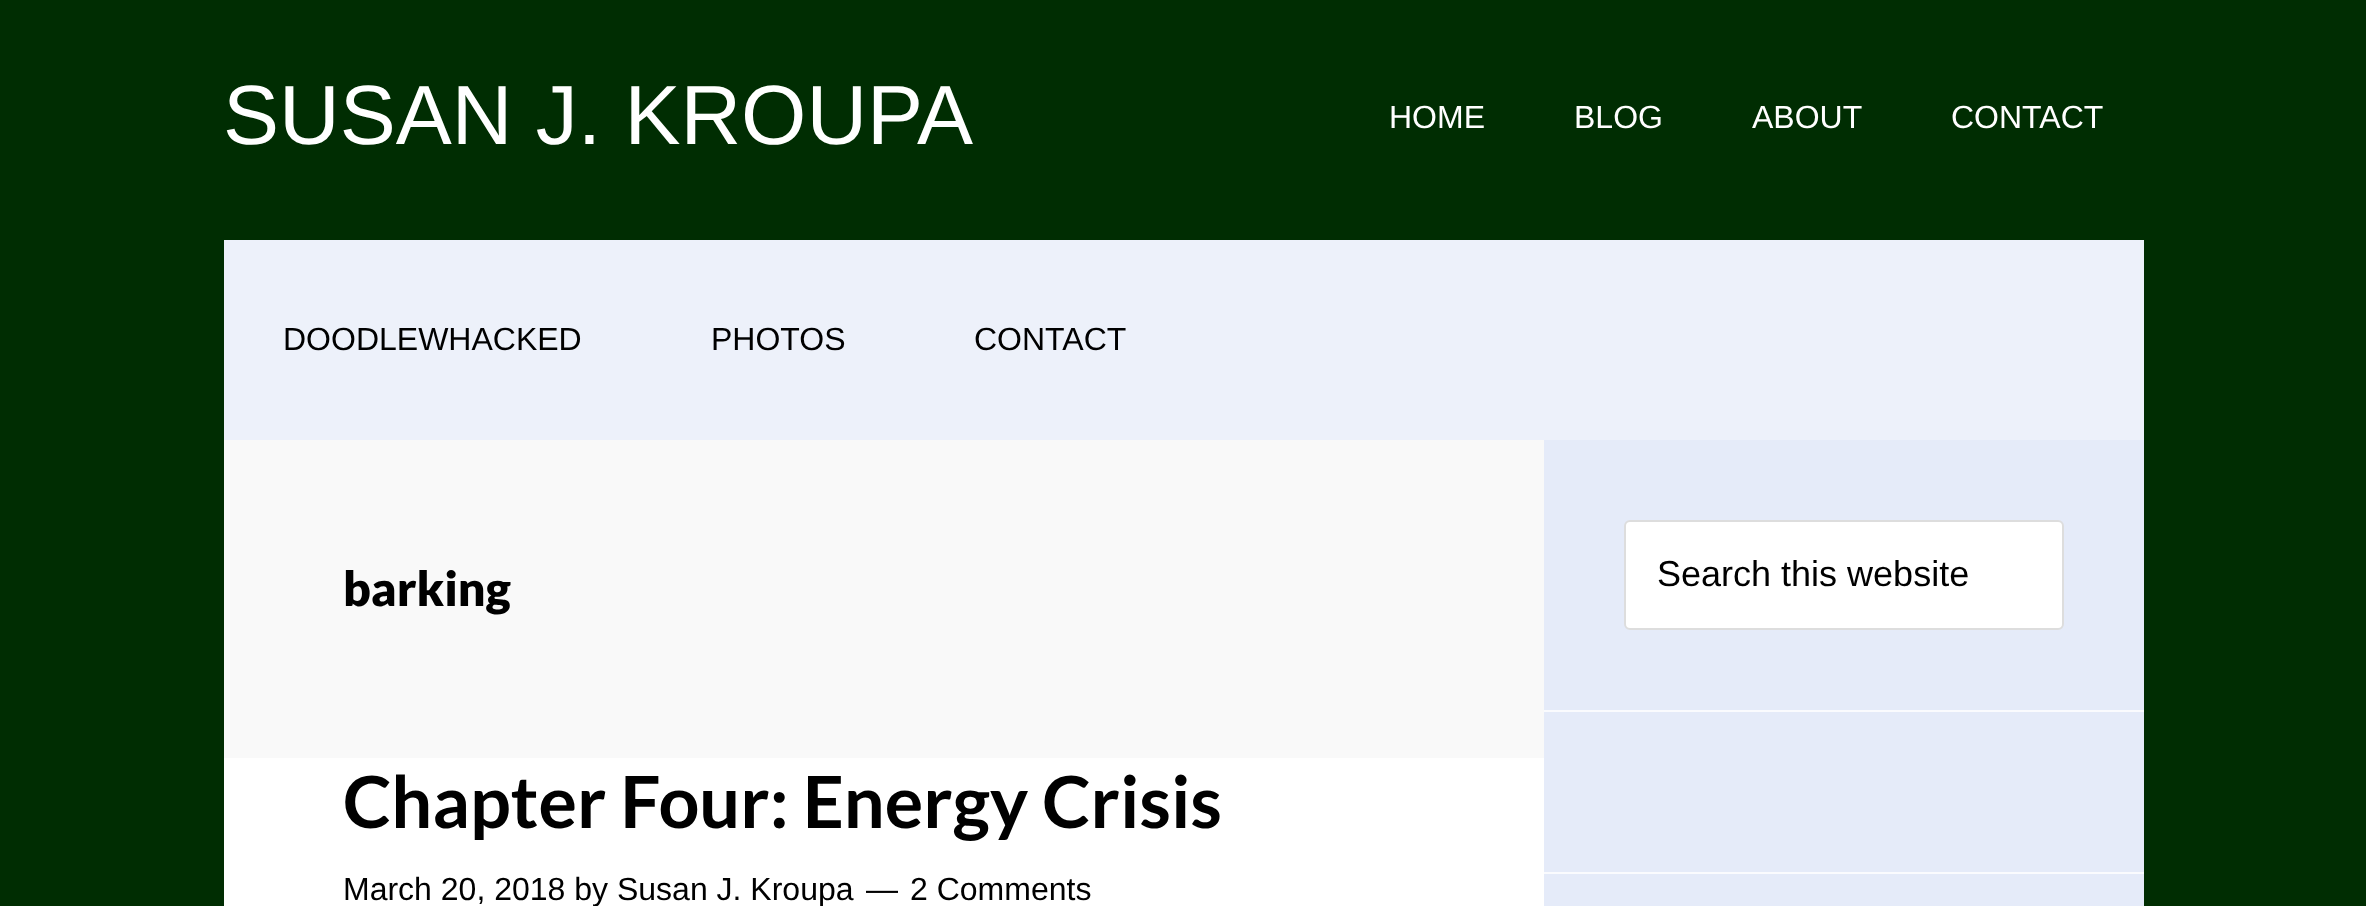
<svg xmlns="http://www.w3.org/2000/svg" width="2366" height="906">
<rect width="100%" height="100%" fill="#002d02"/>
<text x="223" y="144" style="font-family:Liberation Sans;font-size:84px;fill:#fff">SUSAN J. KROUPA</text>
<text x="1389" y="128" style="font-family:Liberation Sans;font-size:32px;fill:#fff">HOME</text>
<text x="1574" y="128" style="font-family:Liberation Sans;font-size:32px;fill:#fff">BLOG</text>
<text x="1752" y="128" style="font-family:Liberation Sans;font-size:32px;fill:#fff">ABOUT</text>
<text x="1951" y="128" style="font-family:Liberation Sans;font-size:32px;fill:#fff">CONTACT</text>
<rect x="224" y="758" width="1320" height="148" fill="#fff"/>
<rect x="224" y="240" width="1920" height="200" fill="#edf1fa"/>
<text x="283" y="350" style="font-family:Liberation Sans;font-size:32px;fill:#000">DOODLEWHACKED</text>
<text x="711" y="350" style="font-family:Liberation Sans;font-size:32px;fill:#000">PHOTOS</text>
<text x="974" y="350" style="font-family:Liberation Sans;font-size:32px;fill:#000">CONTACT</text>
<rect x="224" y="440" width="1320" height="318" fill="#f9f9f9"/>
<text x="343" y="606" style="font-family:Lato;font-size:48px;font-weight:900;fill:#000">barking</text>
<text x="343" y="828" style="font-family:Lato;font-size:72px;font-weight:bold;fill:#000">Chapter Four: Energy Crisis</text>
<text x="343" y="900" style="font-family:Liberation Sans;font-size:32px;fill:#000">March 20, 2018 by Susan J. Kroupa</text>
<text x="866" y="900" style="font-family:Liberation Sans;font-size:32px;fill:#000">—</text>
<text x="910" y="900" style="font-family:Liberation Sans;font-size:32px;fill:#000">2 Comments</text>
<rect x="1544" y="440" width="600" height="466" fill="#e5ebf9"/>
<rect x="1544" y="710" width="600" height="2" fill="#fafbfe"/>
<rect x="1625" y="521" width="438" height="108" rx="5" fill="#fff" stroke="#ddd" stroke-width="2"/>
<text x="1657" y="586" style="font-family:Liberation Sans;font-size:36px;fill:#000">Search this website</text>
<rect x="1544" y="872" width="600" height="2" fill="#fafbfe"/>
</svg>
